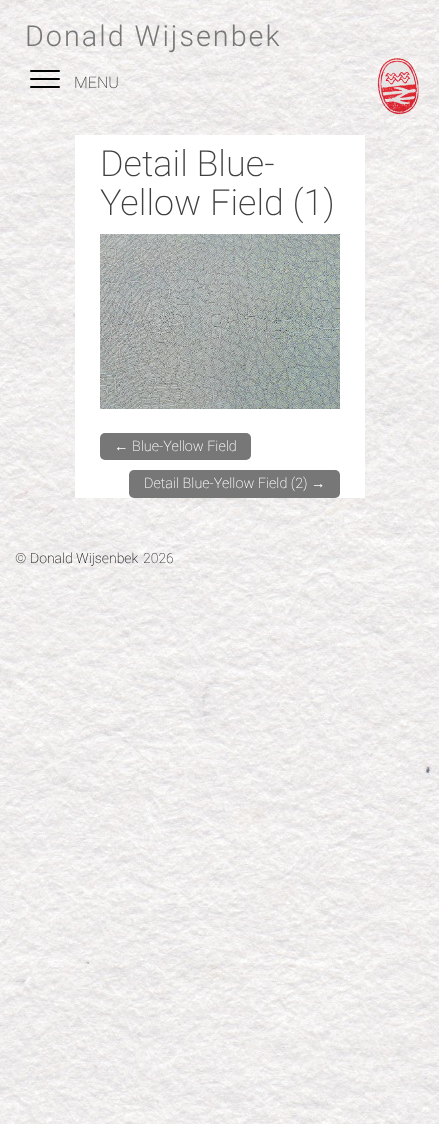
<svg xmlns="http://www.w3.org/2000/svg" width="439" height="1124">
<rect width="100%" height="100%" fill="#fff"/>
<image x="0" y="0" width="439" height="1124" href="media/1.png"/>
<text x="25" y="46" style="font-family:Roboto;font-size:28.75px;font-weight:300;letter-spacing:2px;fill:#777">Donald Wijsenbek</text>
<image x="377" y="57" width="42" height="58" href="media/2.png"/>
<rect x="30" y="78" width="30" height="2" rx="1" fill="#000"/>
<rect x="30" y="70" width="30" height="2" rx="1" fill="#000"/>
<rect x="30" y="86" width="30" height="2" rx="1" fill="#000"/>
<text x="74" y="88" style="font-family:Roboto;font-size:16px;font-weight:200;fill:#404040">MENU</text>
<rect x="75" y="135" width="290" height="363" fill="#fff"/>
<text x="100" y="176" style="font-family:Roboto;font-size:36px;font-weight:200;fill:#404040">Detail Blue-</text>
<text x="100" y="215" style="font-family:Roboto;font-size:36px;font-weight:200;fill:#404040">Yellow Field (1)</text>
<image x="100" y="234" width="240" height="175" href="media/3.png"/>
<rect x="100" y="433" width="151" height="27" rx="5" fill="#777"/>
<text x="114" y="451" style="font-family:Liberation Sans;font-size:14.4px;fill:#fff">←</text>
<text x="132" y="451" style="font-family:Roboto;font-size:14.4px;font-weight:200;fill:#fff">Blue-Yellow Field</text>
<rect x="129" y="470" width="211" height="28" rx="5" fill="#777"/>
<text x="144" y="488" style="font-family:Roboto;font-size:14.4px;font-weight:200;fill:#fff">Detail Blue-Yellow Field (2)</text>
<text x="311" y="488" style="font-family:Liberation Sans;font-size:14.4px;fill:#fff">→</text>
<text x="15" y="563" style="font-family:Roboto;font-size:14px;font-weight:200;fill:#404040">©</text>
<text x="30" y="563" style="font-family:Roboto;font-size:14px;font-weight:200;fill:#111">Donald Wijsenbek</text>
<text x="143" y="563" style="font-family:Roboto;font-size:14px;font-weight:200;fill:#404040">2026</text>
</svg>
